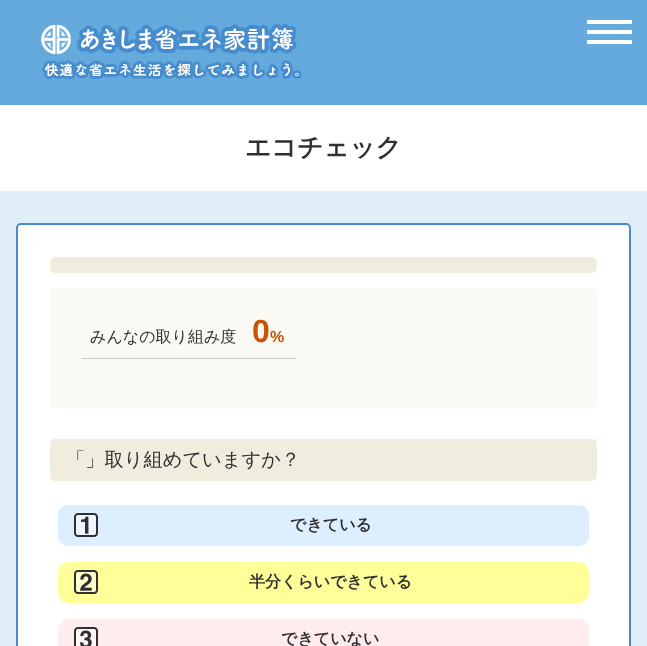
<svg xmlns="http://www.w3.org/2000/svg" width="647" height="646">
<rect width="100%" height="100%" fill="#64aadd"/>
<image x="41" y="24" width="256" height="30" href="media/1.png"/>
<image x="42" y="60" width="260" height="19" href="media/2.png"/>
<rect x="587" y="30" width="45" height="4" fill="#fff"/>
<rect x="587" y="20" width="45" height="4" fill="#fff"/>
<rect x="587" y="40" width="45" height="4" fill="#fff"/>
<rect y="191" width="647" height="455" fill="#e0eef8"/>
<rect y="105" width="647" height="86" fill="#fff"/>
<text x="245" y="156" style="font-family:WenQuanYi Zen Hei;font-size:25.5px;font-weight:bold;fill:#303030">エコチェック</text>
<rect x="17" y="224" width="613" height="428" rx="4" fill="#fff" stroke="#458dce" stroke-width="2"/>
<rect x="50" y="257" width="547" height="16" rx="5" fill="#f0eddf"/>
<rect x="50" y="289" width="547" height="118" fill="#faf9f4"/>
<rect x="82" y="358" width="214" height="1" fill="#ccc"/>
<text x="90" y="342" style="font-family:WenQuanYi Zen Hei;font-size:16px;font-weight:500;fill:#303030">みんなの取り組み度</text>
<text x="252" y="342" style="font-family:Liberation Sans;font-size:32px;font-weight:bold;fill:#ca5300">0</text>
<text x="270" y="342" style="font-family:Liberation Sans;font-size:16px;font-weight:bold;fill:#ca5300">%</text>
<rect x="50" y="439" width="547" height="42" rx="5" fill="#f0eddf"/>
<text x="66" y="466" style="font-family:WenQuanYi Zen Hei;font-size:19.25px;font-weight:500;fill:#303030">「」取り組めていますか？</text>
<rect x="58" y="505" width="531" height="41" rx="10" fill="#def"/>
<image x="74" y="513" width="24" height="24" href="media/3.png"/>
<text x="290" y="530" style="font-family:WenQuanYi Zen Hei;font-size:16px;font-weight:bold;fill:#303030">できている</text>
<rect x="58" y="562" width="531" height="41" rx="10" fill="#ff9"/>
<image x="74" y="570" width="24" height="24" href="media/4.png"/>
<text x="249" y="587" style="font-family:WenQuanYi Zen Hei;font-size:16px;font-weight:bold;fill:#303030">半分くらいできている</text>
<rect x="58" y="619" width="531" height="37" rx="10" fill="#ffecef"/>
<image x="74" y="627" width="24" height="19" href="media/5.png"/>
<text x="281" y="644" style="font-family:WenQuanYi Zen Hei;font-size:16px;font-weight:bold;fill:#303030">できていない</text>
</svg>
